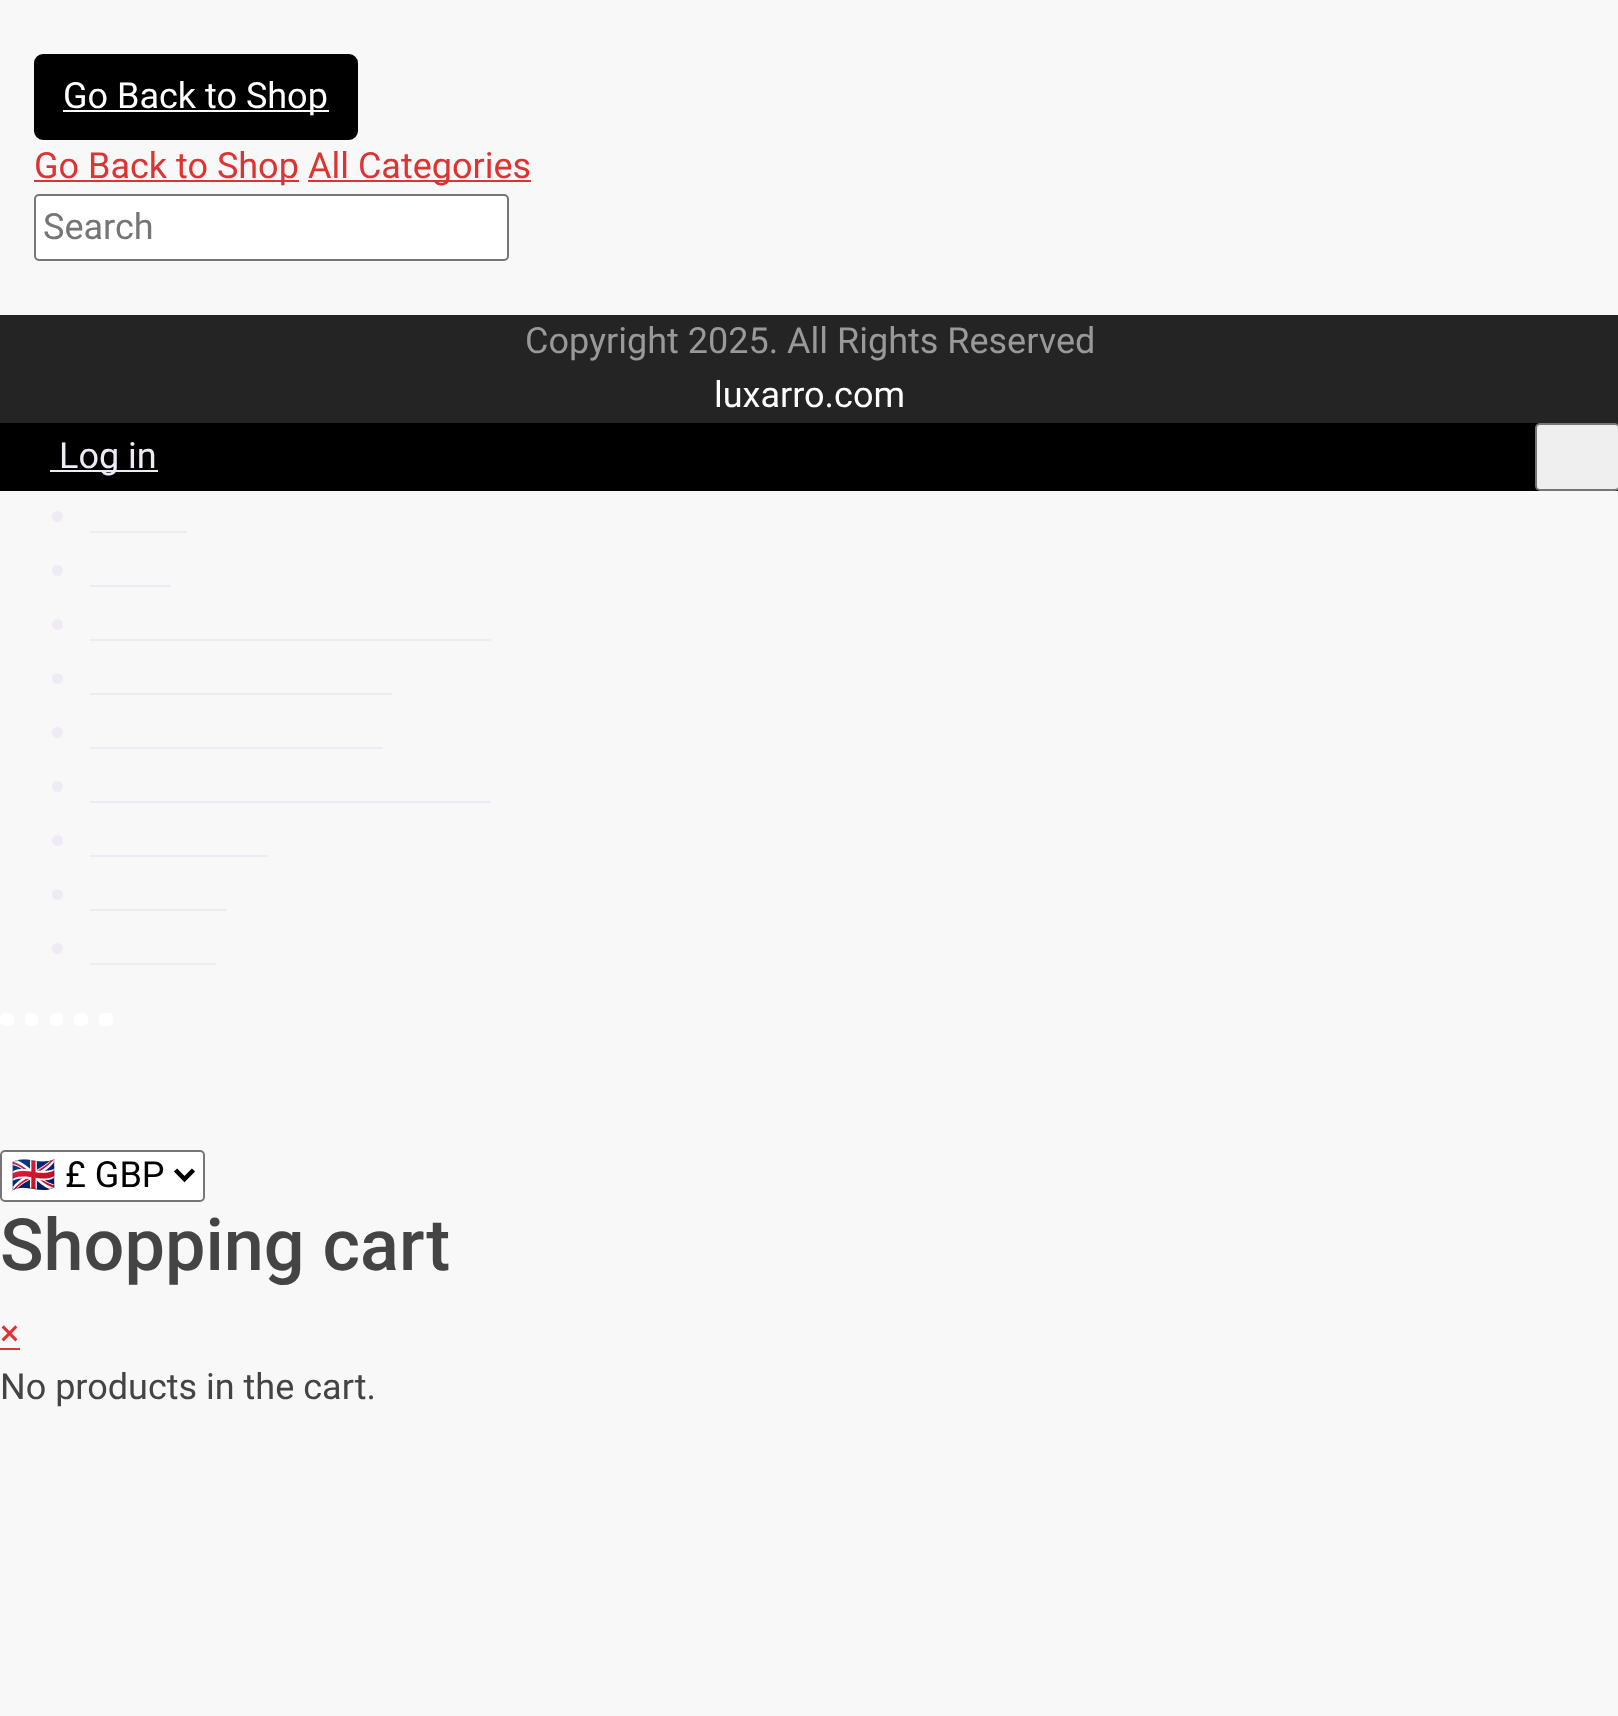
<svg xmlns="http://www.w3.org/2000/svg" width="1618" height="1716">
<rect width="100%" height="100%" fill="#f8f8f8"/>
<rect x="35" y="55" width="322" height="84" rx="8" fill="#000" stroke="#000" stroke-width="2"/>
<rect x="63" y="110" width="266" height="2" fill="#fff"/>
<text x="63" y="108" style="font-family:Roboto;font-size:36px;fill:#fff">Go Back to Shop</text>
<rect x="34" y="180" width="265" height="2" fill="#d33"/>
<text x="34" y="178" style="font-family:Roboto;font-size:36px;fill:#d33">Go Back to Shop</text>
<rect x="308" y="180" width="223" height="2" fill="#d33"/>
<text x="308" y="178" style="font-family:Roboto;font-size:36px;fill:#d33">All Categories</text>
<rect x="35" y="195" width="473" height="65" rx="4" fill="#fff" stroke="#767676" stroke-width="2"/>
<text x="43" y="239" style="font-family:Roboto;font-size:36px;fill:#757575">Search</text>
<rect y="315" width="1618" height="108" fill="#242424"/>
<text x="525" y="353" style="font-family:Roboto;font-size:36px;fill:#999">Copyright 2025. All Rights Reserved</text>
<text x="714" y="407" style="font-family:Roboto;font-size:36px;fill:#fff">luxarro.com</text>
<rect y="423" width="1618" height="68" fill="#000"/>
<rect x="50" y="470" width="108" height="2" fill="#f0eaf4"/>
<text x="59" y="468" style="font-family:Roboto;font-size:36px;fill:#f0eaf4">Log in</text>
<rect x="1536" y="424" width="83" height="66" rx="4" fill="#efefef" stroke="#767676" stroke-width="2"/>
<circle cx="57.5" cy="516.5" r="5.5" fill="#f0eaf4"/>
<rect x="90" y="531" width="97" height="2" fill="#f0eaf4"/>
<circle cx="57.5" cy="570.5" r="5.5" fill="#f0eaf4"/>
<rect x="90" y="585" width="81" height="2" fill="#f0eaf4"/>
<circle cx="57.5" cy="624.5" r="5.5" fill="#f0eaf4"/>
<rect x="90" y="639" width="401" height="2" fill="#f0eaf4"/>
<circle cx="57.5" cy="678.5" r="5.5" fill="#f0eaf4"/>
<rect x="90" y="693" width="302" height="2" fill="#f0eaf4"/>
<circle cx="57.5" cy="732.5" r="5.5" fill="#f0eaf4"/>
<rect x="90" y="747" width="293" height="2" fill="#f0eaf4"/>
<circle cx="57.5" cy="786.5" r="5.5" fill="#f0eaf4"/>
<rect x="90" y="801" width="401" height="2" fill="#f0eaf4"/>
<circle cx="57.5" cy="840.5" r="5.5" fill="#f0eaf4"/>
<rect x="90" y="855" width="178" height="2" fill="#f0eaf4"/>
<circle cx="57.5" cy="894.5" r="5.5" fill="#f0eaf4"/>
<rect x="90" y="909" width="137" height="2" fill="#f0eaf4"/>
<circle cx="57.5" cy="948.5" r="5.5" fill="#f0eaf4"/>
<rect x="90" y="963" width="126" height="2" fill="#f0eaf4"/>
<rect y="1013" width="14" height="13" rx="5" fill="#fff"/>
<rect x="25" y="1013" width="13" height="13" rx="5" fill="#fff"/>
<rect x="50" y="1013" width="13" height="13" rx="5" fill="#fff"/>
<rect x="74" y="1013" width="14" height="13" rx="5" fill="#fff"/>
<rect x="99" y="1013" width="14" height="13" rx="5" fill="#fff"/>
<rect x="1" y="1151" width="203" height="50" rx="4" fill="#fff" stroke="#767676" stroke-width="2"/>
<path d="M175.5 1170l9 9l9-9" fill="none" stroke="#000" stroke-width="4.5"/>
<text x="11" y="1187" style="font-family:Noto Color Emoji;font-size:36px;fill:#000">🇬🇧</text>
<text x="65" y="1187" style="font-family:Roboto;font-size:36px;fill:#000">£ GBP</text>
<text x="0" y="1270" style="font-family:Roboto;font-size:72px;font-weight:500;fill:#444">Shopping cart</text>
<text x="0" y="1345" style="font-family:Roboto;font-size:36px;fill:#d33">×</text>
<rect y="1348" width="20" height="2" fill="#d33"/>
<text x="0" y="1399" style="font-family:Roboto;font-size:36px;fill:#444">No products in the cart.</text>
</svg>
